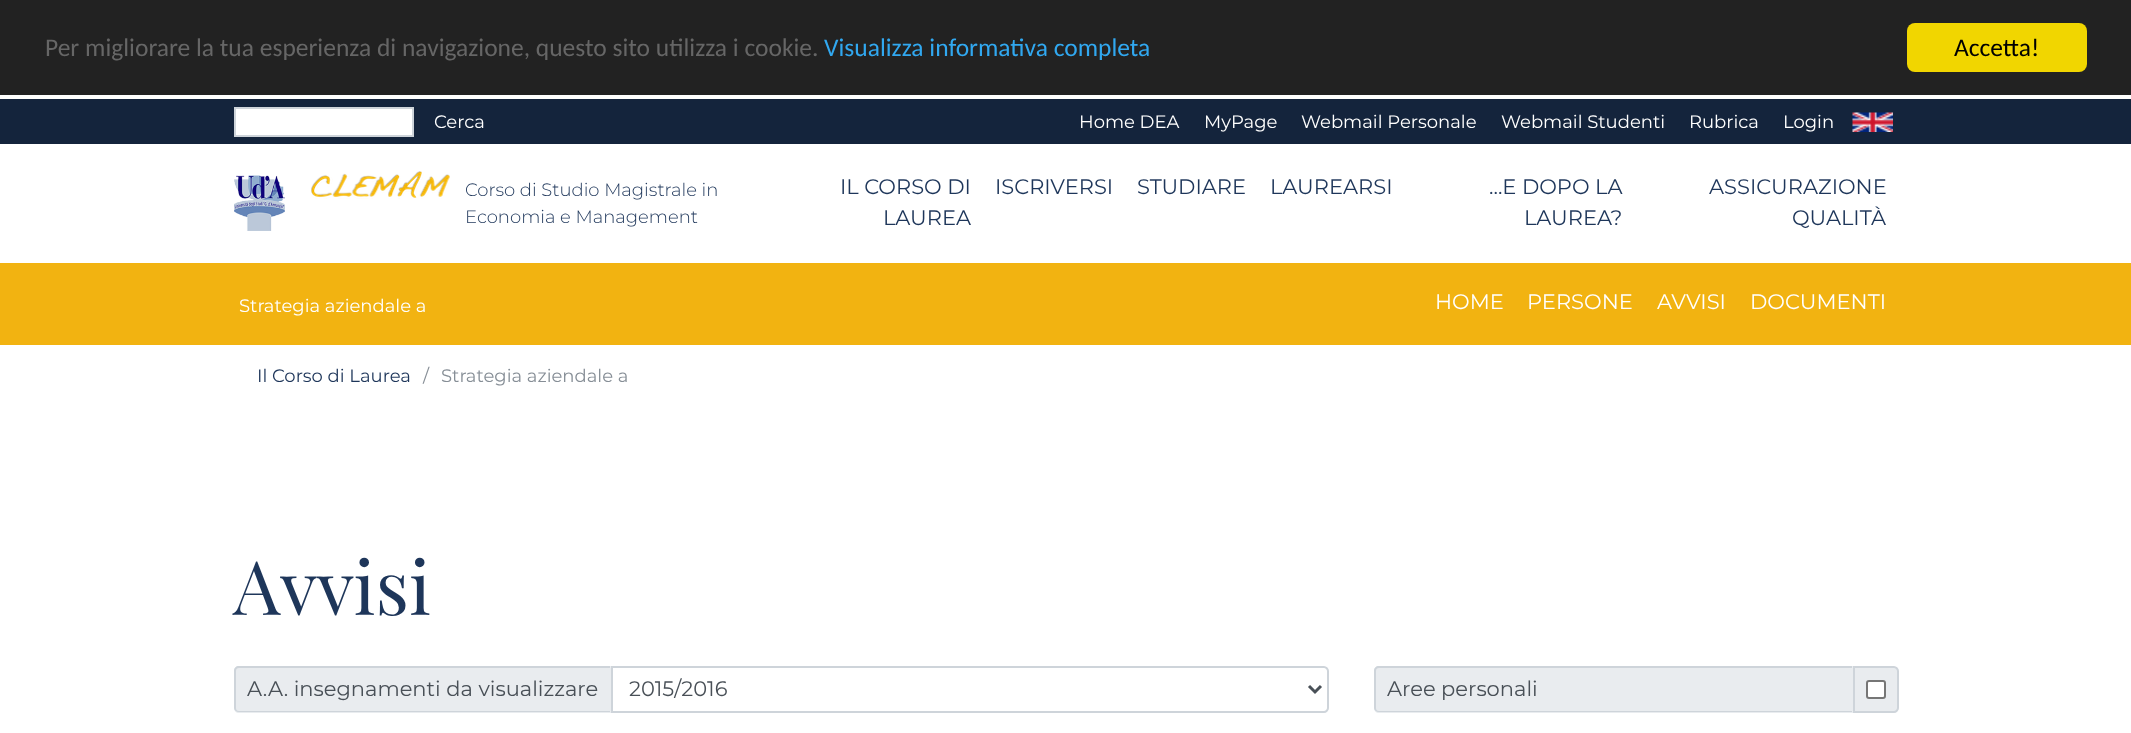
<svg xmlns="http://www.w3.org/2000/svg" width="2131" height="733">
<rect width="100%" height="100%" fill="#fff"/>
<rect width="2131" height="95" fill="#222"/>
<text x="45" y="56" style="font-family:Carlito;font-size:25.5px;fill:#666">Per migliorare la tua esperienza di navigazione, questo sito utilizza i cookie.</text>
<text x="824" y="56" style="font-family:Carlito;font-size:25.5px;fill:#31a8f0">Visualizza informativa completa</text>
<rect x="1907" y="23" width="180" height="49" rx="8" fill="#f1d600"/>
<text x="1954" y="56" style="font-family:Carlito;font-size:25.5px;fill:#000">Accetta!</text>
<rect y="99" width="2131" height="45" fill="#14243c"/>
<rect x="235" y="108" width="178" height="28" fill="#fff" stroke="#ced4da" stroke-width="2"/>
<text x="434" y="128" style="font-family:Montserrat;font-size:18px;fill:#fff">Cerca</text>
<text x="1079" y="128" style="font-family:Montserrat;font-size:18px;fill:#fff">Home DEA</text>
<text x="1204" y="128" style="font-family:Montserrat;font-size:18px;fill:#fff">MyPage</text>
<text x="1301" y="128" style="font-family:Montserrat;font-size:18px;fill:#fff">Webmail Personale</text>
<text x="1501" y="128" style="font-family:Montserrat;font-size:18px;fill:#fff">Webmail Studenti</text>
<text x="1689" y="128" style="font-family:Montserrat;font-size:18px;fill:#fff">Rubrica</text>
<text x="1783" y="128" style="font-family:Montserrat;font-size:18px;fill:#fff">Login</text>
<image x="1852" y="112" width="41" height="20" href="media/1.png"/>
<rect y="263" width="2131" height="82" fill="#f2b311"/>
<image x="234" y="175" width="51" height="56" href="media/2.png"/>
<image x="311" y="171" width="139" height="28" href="media/3.png"/>
<text x="465" y="196" style="font-family:Montserrat;font-size:18px;font-weight:300;fill:#1e365a">Corso di Studio Magistrale in</text>
<text x="465" y="223" style="font-family:Montserrat;font-size:18px;font-weight:300;fill:#1e365a">Economia e Management</text>
<text x="840" y="194" style="font-family:Montserrat;font-size:21px;fill:#1e365a">IL CORSO DI</text>
<text x="883" y="225" style="font-family:Montserrat;font-size:21px;fill:#1e365a">LAUREA</text>
<text x="995" y="194" style="font-family:Montserrat;font-size:21px;fill:#1e365a">ISCRIVERSI</text>
<text x="1137" y="194" style="font-family:Montserrat;font-size:21px;fill:#1e365a">STUDIARE</text>
<text x="1270" y="194" style="font-family:Montserrat;font-size:21px;fill:#1e365a">LAUREARSI</text>
<text x="1489" y="194" style="font-family:Montserrat;font-size:21px;fill:#1e365a">...E DOPO LA</text>
<text x="1524" y="225" style="font-family:Montserrat;font-size:21px;fill:#1e365a">LAUREA?</text>
<text x="1709" y="194" style="font-family:Montserrat;font-size:21px;fill:#1e365a">ASSICURAZIONE</text>
<text x="1792" y="225" style="font-family:Montserrat;font-size:21px;fill:#1e365a">QUALITÀ</text>
<text x="239" y="312" style="font-family:Montserrat;font-size:18px;fill:#fff">Strategia aziendale a</text>
<text x="1435" y="309" style="font-family:Montserrat;font-size:21px;fill:#fff">HOME</text>
<text x="1527" y="309" style="font-family:Montserrat;font-size:21px;fill:#fff">PERSONE</text>
<text x="1657" y="309" style="font-family:Montserrat;font-size:21px;fill:#fff">AVVISI</text>
<text x="1750" y="309" style="font-family:Montserrat;font-size:21px;fill:#fff">DOCUMENTI</text>
<text x="257" y="382" style="font-family:Montserrat;font-size:18px;fill:#1e365a">Il Corso di Laurea</text>
<text x="423" y="382" style="font-family:Montserrat;font-size:18px;fill:#868e96">/</text>
<text x="441" y="382" style="font-family:Montserrat;font-size:18px;fill:#868e96">Strategia aziendale a</text>
<text x="233" y="615" style="font-family:Playfair Display;font-size:75px;fill:#1e365a">Avvisi</text>
<path d="M239 666h372v47h-372c-3 0-5-2-5-5v-37c0-3 2-5 5-5z" fill="#e9ecef"/>
<path d="M239 666h371v46h-371c-3 0-5-2-5-4v-37c0-3 2-5 5-5zm0 2h371v43h-371c-2 0-3-1-3-3v-37c0-2 1-3 3-3z" fill="#ced4da" fill-rule="evenodd"/>
<text x="247" y="696" style="font-family:Montserrat;font-size:21px;fill:#495057">A.A. insegnamenti da visualizzare</text>
<path d="M612 667h712c2 0 4 2 4 4v37c0 2-2 4-4 4h-712z" fill="none" stroke="#ced4da" stroke-width="2"/>
<path d="M1309 686l6 6l6-6" fill="none" stroke="#495057" stroke-width="3"/>
<text x="629" y="696" style="font-family:Montserrat;font-size:21px;fill:#495057">2015/2016</text>
<path d="M1379 666h474v47h-474c-3 0-5-2-5-5v-37c0-3 2-5 5-5z" fill="#e9ecef"/>
<path d="M1379 666h473v46h-473c-3 0-5-2-5-4v-37c0-3 2-5 5-5zm0 2h473v43h-473c-2 0-3-1-3-3v-37c0-2 1-3 3-3z" fill="#ced4da" fill-rule="evenodd"/>
<text x="1387" y="696" style="font-family:Montserrat;font-size:21px;fill:#495057">Aree personali</text>
<path d="M1854 667h40c2 0 4 2 4 4v37c0 2-2 4-4 4h-40z" fill="#e9ecef" stroke="#ced4da" stroke-width="2"/>
<rect x="1867" y="681" width="18" height="17" rx="2" fill="#fff" stroke="#767676" stroke-width="2"/>
</svg>
